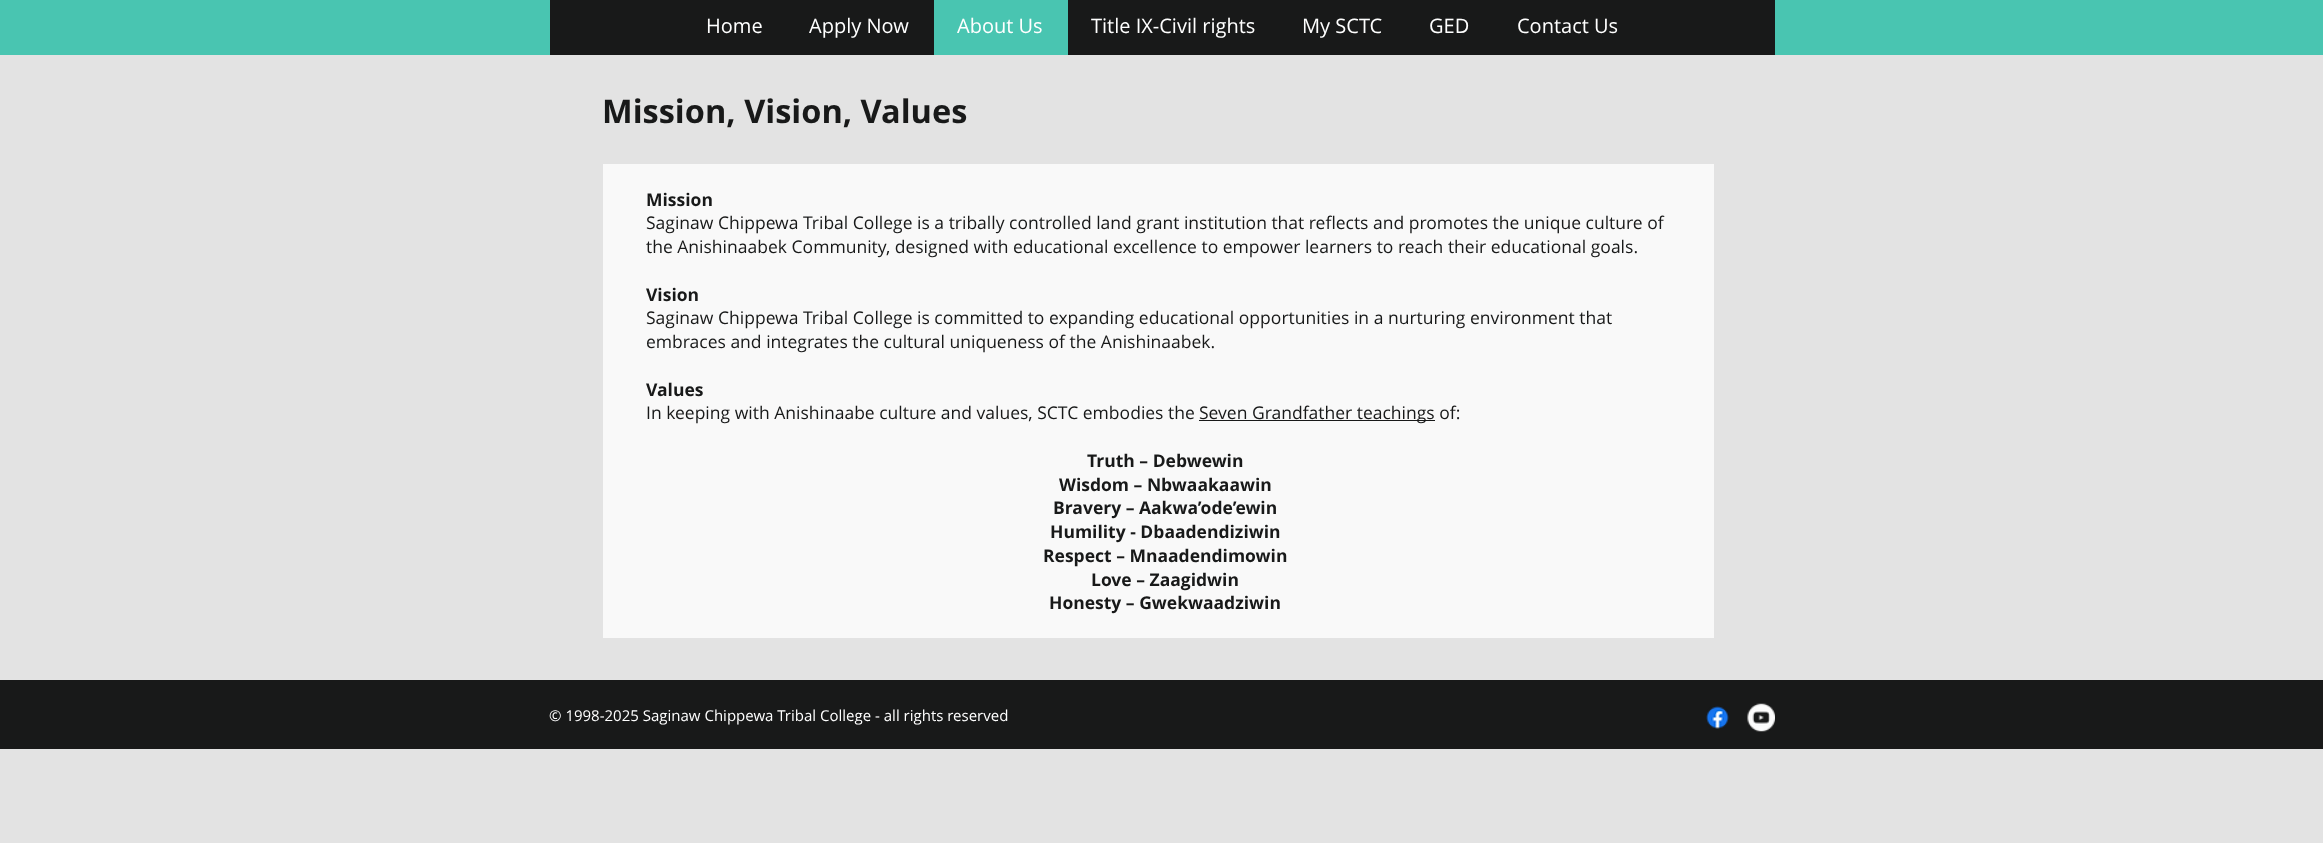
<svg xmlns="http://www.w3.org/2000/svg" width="2323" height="843">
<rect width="100%" height="100%" fill="#e3e3e3"/>
<rect width="2323" height="55" fill="#49c5b1"/>
<rect x="550" width="1225" height="55" fill="#181919"/>
<text x="706" y="33" style="font-family:Open Sans;font-size:20px;fill:#fff">Home</text>
<text x="809" y="33" style="font-family:Open Sans;font-size:20px;fill:#fff">Apply Now</text>
<rect x="934" width="134" height="55" fill="#49c5b1"/>
<text x="957" y="33" style="font-family:Open Sans;font-size:20px;fill:#fff">About Us</text>
<text x="1091" y="33" style="font-family:Open Sans;font-size:20px;fill:#fff">Title IX-Civil rights</text>
<text x="1302" y="33" style="font-family:Open Sans;font-size:20px;fill:#fff">My SCTC</text>
<text x="1429" y="33" style="font-family:Open Sans;font-size:20px;fill:#fff">GED</text>
<text x="1517" y="33" style="font-family:Open Sans;font-size:20px;fill:#fff">Contact Us</text>
<text x="602" y="123" style="font-family:Open Sans;font-size:32.5px;font-weight:bold;fill:#181919">Mission, Vision, Values</text>
<rect x="603" y="164" width="1111" height="474" fill="#f9f9f9"/>
<text x="646" y="206" style="font-family:Open Sans;font-size:17.5px;font-weight:bold;fill:#181919">Mission</text>
<text x="646" y="229" style="font-family:Open Sans;font-size:17.5px;fill:#181919">Saginaw Chippewa Tribal College is a tribally controlled land grant institution that reflects and promotes the unique culture of</text>
<text x="646" y="253" style="font-family:Open Sans;font-size:17.5px;fill:#181919">the Anishinaabek Community, designed with educational excellence to empower learners to reach their educational goals.</text>
<text x="646" y="301" style="font-family:Open Sans;font-size:17.5px;font-weight:bold;fill:#181919">Vision</text>
<text x="646" y="324" style="font-family:Open Sans;font-size:17.5px;fill:#181919">Saginaw Chippewa Tribal College is committed to expanding educational opportunities in a nurturing environment that</text>
<text x="646" y="348" style="font-family:Open Sans;font-size:17.5px;fill:#181919">embraces and integrates the cultural uniqueness of the Anishinaabek.</text>
<text x="646" y="396" style="font-family:Open Sans;font-size:17.5px;font-weight:bold;fill:#181919">Values</text>
<text x="646" y="419" style="font-family:Open Sans;font-size:17.5px;fill:#181919">In keeping with Anishinaabe culture and values, SCTC embodies the</text>
<rect x="1199" y="420" width="236" height="1" fill="#181919"/>
<text x="1199" y="419" style="font-family:Open Sans;font-size:17.5px;fill:#181919">Seven Grandfather teachings of:</text>
<text x="1087" y="467" style="font-family:Open Sans;font-size:17.5px;font-weight:bold;fill:#181919">Truth – Debwewin</text>
<text x="1059" y="491" style="font-family:Open Sans;font-size:17.5px;font-weight:bold;fill:#181919">Wisdom – Nbwaakaawin</text>
<text x="1053" y="514" style="font-family:Open Sans;font-size:17.5px;font-weight:bold;fill:#181919">Bravery – Aakwa’ode’ewin</text>
<text x="1050" y="538" style="font-family:Open Sans;font-size:17.5px;font-weight:bold;fill:#181919">Humility - Dbaadendiziwin</text>
<text x="1043" y="562" style="font-family:Open Sans;font-size:17.5px;font-weight:bold;fill:#181919">Respect – Mnaadendimowin</text>
<text x="1091" y="586" style="font-family:Open Sans;font-size:17.5px;font-weight:bold;fill:#181919">Love – Zaagidwin</text>
<text x="1049" y="609" style="font-family:Open Sans;font-size:17.5px;font-weight:bold;fill:#181919">Honesty – Gwekwaadziwin</text>
<rect y="680" width="2323" height="69" fill="#181919"/>
<text x="549" y="721" style="font-family:Open Sans;font-size:15px;fill:#fff">© 1998-2025 Saginaw Chippewa Tribal College - all rights reserved</text>
<image x="1706" y="706" width="23" height="23" href="media/1.png"/>
<image x="1747" y="703" width="28" height="29" href="media/2.png"/>
</svg>
